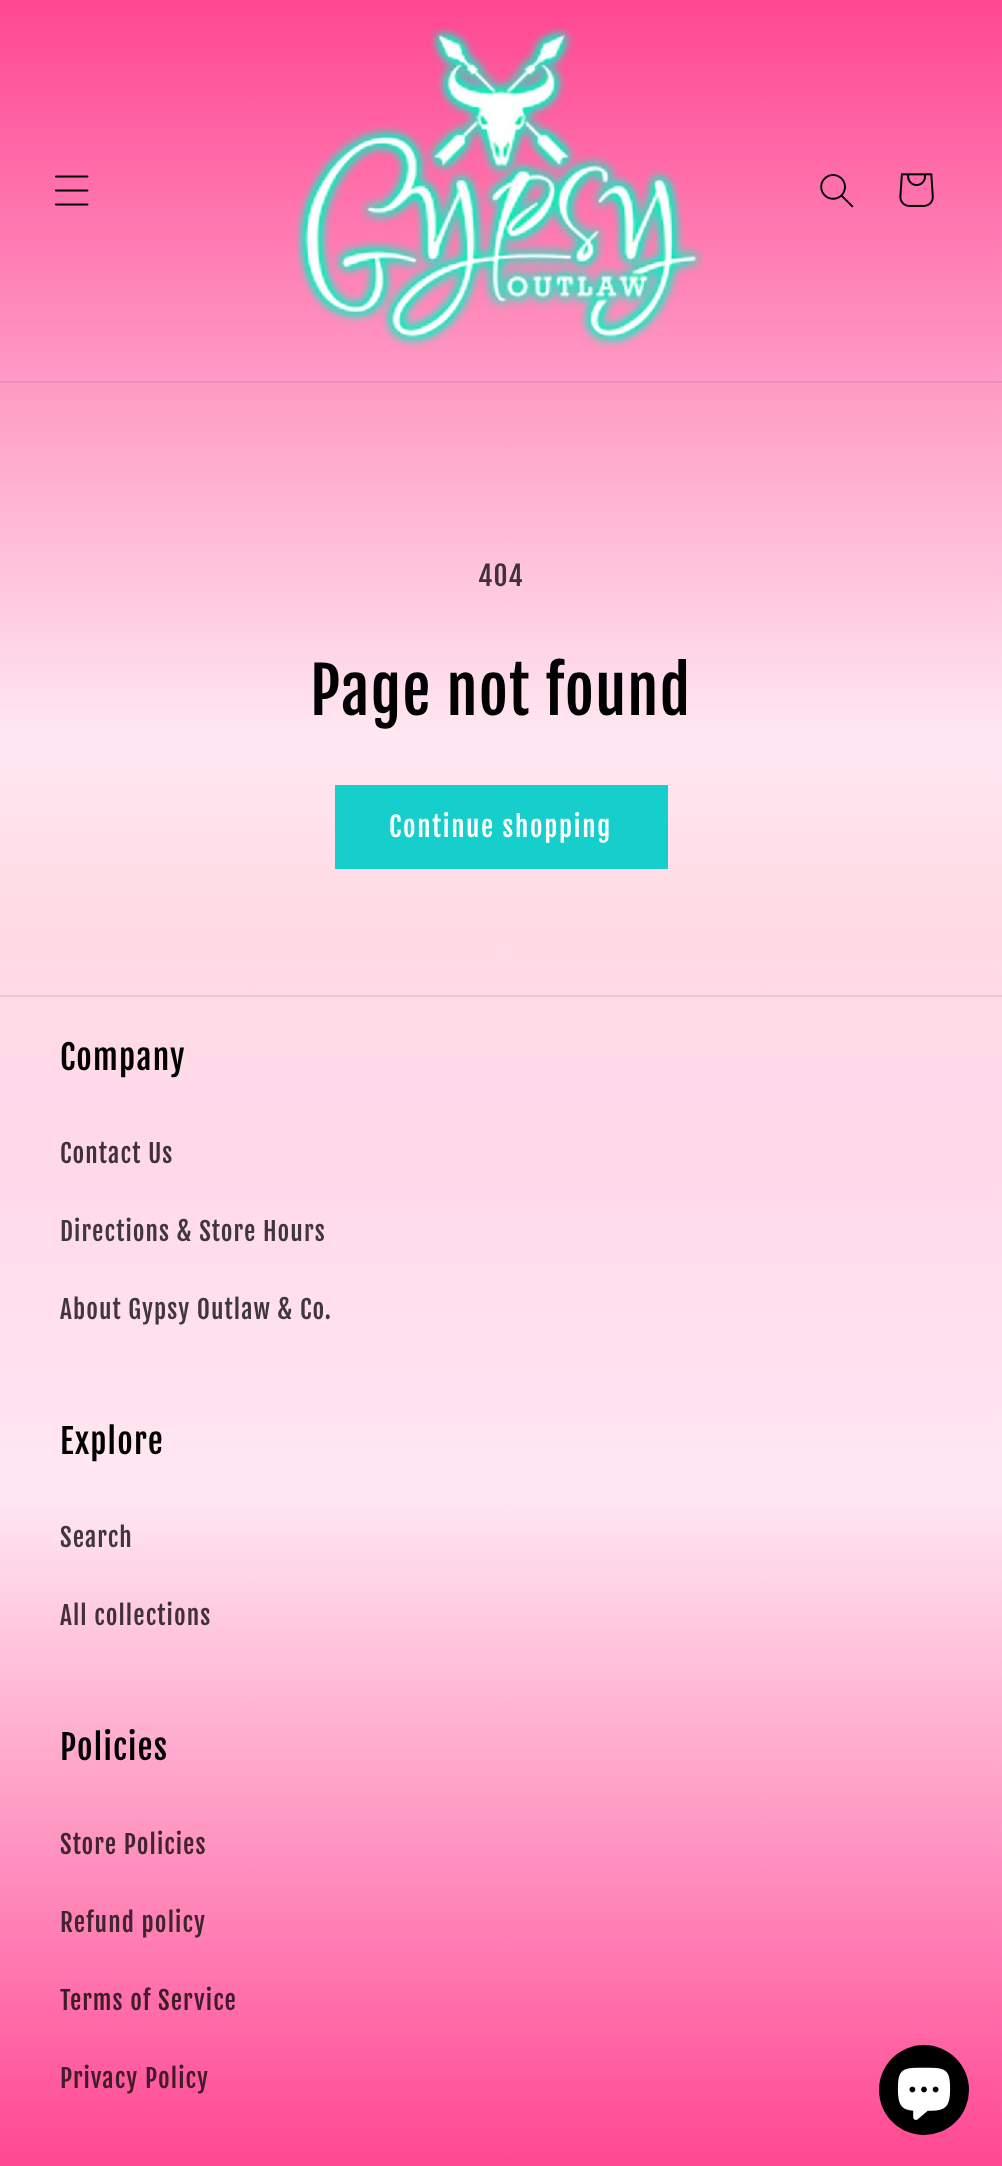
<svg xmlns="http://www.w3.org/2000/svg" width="1002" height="2166">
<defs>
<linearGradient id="g1" gradientUnits="userSpaceOnUse" x1="501" y1="0" x2="501" y2="2166"><stop offset="0" stop-color="#ff4792"/><stop offset="0.34" stop-color="#ffe8f2"/><stop offset="0.42" stop-color="#ffdbe5"/><stop offset="0.54" stop-color="#ffd9ea"/><stop offset="0.69" stop-color="#ffe8f2"/><stop offset="1" stop-color="#ff4792"/></linearGradient>
</defs>
<rect width="100%" height="100%" fill="#fff"/>
<rect width="1002" height="2166" fill="url(#g1)"/>
<rect y="381" width="1002" height="2" fill="#eb8eb4"/>
<image x="55" y="175" width="34" height="31" href="media/1.png"/>
<image x="294" y="28" width="411" height="321" href="media/2.png"/>
<image x="820" y="174" width="34" height="34" href="media/3.png"/>
<image x="899" y="173" width="35" height="34" href="media/4.png"/>
<text x="478" y="586" style="font-family:Fjalla One;font-size:27px;letter-spacing:1.1px;fill:#403137">404</text>
<text x="310" y="715" style="font-family:Fjalla One;font-size:63px;letter-spacing:1.25px;fill:#000">Page not found</text>
<rect x="335" y="785" width="333" height="84" fill="#16cecb"/>
<text x="389" y="837" style="font-family:Fjalla One;font-size:27px;letter-spacing:1.75px;fill:#feffff">Continue shopping</text>
<rect y="995" width="1002" height="2" fill="#ebc9d5"/>
<text x="60" y="1070" style="font-family:Fjalla One;font-size:33.5px;letter-spacing:1.25px;fill:#000">Company</text>
<text x="60" y="1163" style="font-family:Fjalla One;font-size:25.25px;letter-spacing:1.1px;fill:#403137">Contact Us</text>
<text x="60" y="1241" style="font-family:Fjalla One;font-size:25.25px;letter-spacing:1.1px;fill:#40373b">Directions &amp; Store Hours</text>
<text x="60" y="1319" style="font-family:Fjalla One;font-size:25.25px;letter-spacing:1.1px;fill:#40373b">About Gypsy Outlaw &amp; Co.</text>
<text x="60" y="1454" style="font-family:Fjalla One;font-size:33.5px;letter-spacing:1.25px;fill:#000">Explore</text>
<text x="60" y="1547" style="font-family:Fjalla One;font-size:25.25px;letter-spacing:1.1px;fill:#40373b">Search</text>
<text x="60" y="1625" style="font-family:Fjalla One;font-size:25.25px;letter-spacing:1.1px;fill:#403137">All collections</text>
<text x="60" y="1760" style="font-family:Fjalla One;font-size:33.5px;letter-spacing:1.25px;fill:#000">Policies</text>
<text x="60" y="1854" style="font-family:Fjalla One;font-size:25.25px;letter-spacing:1.1px;fill:#402530">Store Policies</text>
<text x="60" y="1932" style="font-family:Fjalla One;font-size:25.25px;letter-spacing:1.1px;fill:#402530">Refund policy</text>
<text x="60" y="2010" style="font-family:Fjalla One;font-size:25.25px;letter-spacing:1.1px;fill:#401c2a">Terms of Service</text>
<text x="60" y="2088" style="font-family:Fjalla One;font-size:25.25px;letter-spacing:1.1px;fill:#401c2a">Privacy Policy</text>
<circle cx="924" cy="2090" r="45" fill="#000"/>
<image x="897" y="2067" width="54" height="53" href="media/5.png"/>
</svg>
